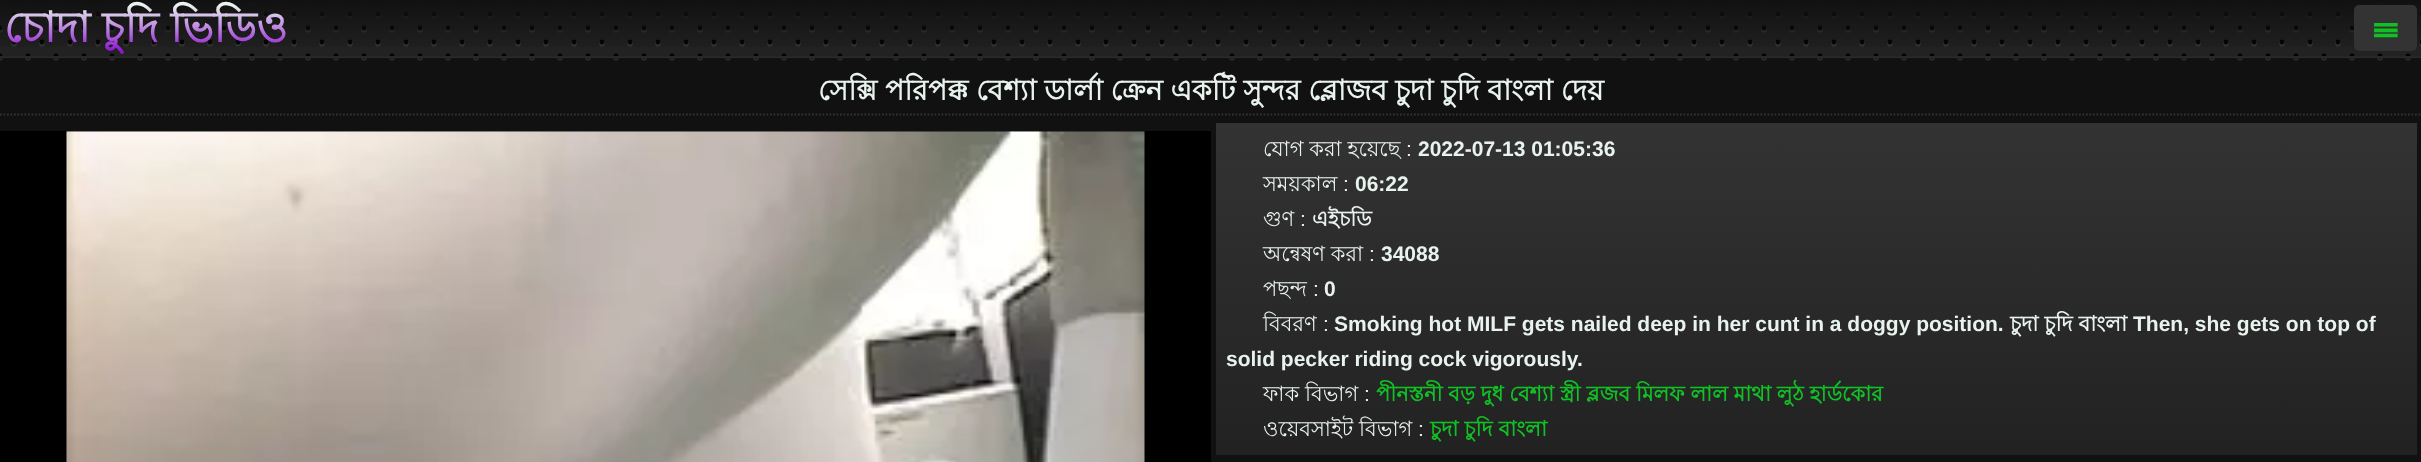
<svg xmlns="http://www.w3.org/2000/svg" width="2421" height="462">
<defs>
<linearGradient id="g1" gradientUnits="userSpaceOnUse" x1="145" y1="5.2" x2="145" y2="51"><stop offset="0" stop-color="#e9f3ee"/><stop offset="1" stop-color="#9014d3"/></linearGradient>
<linearGradient id="g2" gradientUnits="userSpaceOnUse" x1="1211" y1="0" x2="1211" y2="56"><stop offset="0" stop-color="#111"/><stop offset="1" stop-color="#111" stop-opacity="0"/></linearGradient>
<linearGradient id="g3" gradientUnits="userSpaceOnUse" x1="1817" y1="122" x2="1817" y2="455"><stop offset="0" stop-color="#333"/><stop offset="1" stop-color="#222"/></linearGradient>
</defs>
<rect width="100%" height="100%" fill="#111"/>
<rect width="2421" height="56" fill="#222"/>
<path d="M0 1.8h2408.3" fill="none" stroke="#383838" stroke-width="5.9" stroke-linecap="round" stroke-dasharray="0 28"/>
<path d="M0 29.8h2408.3" fill="none" stroke="#383838" stroke-width="5.9" stroke-linecap="round" stroke-dasharray="0 28"/>
<path d="M0 57.8h2408.3" fill="none" stroke="#ffffff1a" stroke-width="5.9" stroke-linecap="round" stroke-dasharray="0 28"/>
<path d="M14 15.8h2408.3" fill="none" stroke="#383838" stroke-width="5.9" stroke-linecap="round" stroke-dasharray="0 28"/>
<path d="M14 43.8h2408.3" fill="none" stroke="#383838" stroke-width="5.9" stroke-linecap="round" stroke-dasharray="0 28"/>
<path d="M0 0h2408.3" fill="none" stroke="#000" stroke-width="4.9" stroke-linecap="round" stroke-dasharray="0 28"/>
<path d="M0 28h2408.3" fill="none" stroke="#000" stroke-width="4.9" stroke-linecap="round" stroke-dasharray="0 28"/>
<path d="M0 56h2408.3" fill="none" stroke="#000" stroke-width="4.9" stroke-linecap="round" stroke-dasharray="0 28"/>
<path d="M14 14h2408.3" fill="none" stroke="#000" stroke-width="4.9" stroke-linecap="round" stroke-dasharray="0 28"/>
<path d="M14 42h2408.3" fill="none" stroke="#000" stroke-width="4.9" stroke-linecap="round" stroke-dasharray="0 28"/>
<rect y="56" width="2421" height="2" fill="#282828"/>
<rect width="2421" height="47" fill="url(#g2)"/>
<text x="4" y="42" style="font-family:Lohit Bengali;font-size:42px;font-weight:bold;fill:url(#g1)">চোদা চুদি ভিডিও</text>
<rect x="2354" y="5" width="63" height="46" rx="5" fill="#333"/>
<text x="2373" y="40" style="font-family:FreeSans;font-size:33px;font-weight:bold;fill:#11c024">☰</text>
<path d="M0 114.5h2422" fill="none" stroke="#333" stroke-width="1.8" stroke-dasharray="1.75 1.75"/>
<text x="818" y="100" style="font-family:Lohit Bengali;font-size:28.35px;font-weight:bold;fill:#e9f3ee">সেক্সি পরিপক্ক বেশ্যা ডার্লা ক্রেন একটি সুন্দর ব্লোজব চুদা চুদি বাংলা দেয়</text>
<rect y="131" width="1211" height="331" fill="#000"/>
<image x="66" y="131" width="1079" height="331" href="media/1.png"/>
<rect x="1216" y="123" width="1201" height="332" fill="url(#g3)"/>
<text x="1263" y="156" style="font-family:Lohit Bengali;font-size:21px;fill:#e9f3ee">যোগ করা হয়েছে</text>
<text x="1406" y="156" style="font-family:Liberation Sans;font-size:21px;fill:#e9f3ee">:</text>
<text x="1418" y="156" style="font-family:Liberation Sans;font-size:21px;font-weight:bold;fill:#e9f3ee">2022-07-13 01:05:36</text>
<text x="1263" y="191" style="font-family:Lohit Bengali;font-size:21px;fill:#e9f3ee">সময়কাল</text>
<text x="1343" y="191" style="font-family:Liberation Sans;font-size:21px;fill:#e9f3ee">:</text>
<text x="1355" y="191" style="font-family:Liberation Sans;font-size:21px;font-weight:bold;fill:#e9f3ee">06:22</text>
<text x="1263" y="226" style="font-family:Lohit Bengali;font-size:21px;fill:#e9f3ee">গুণ</text>
<text x="1300" y="226" style="font-family:Liberation Sans;font-size:21px;fill:#e9f3ee">:</text>
<text x="1312" y="226" style="font-family:Lohit Bengali;font-size:21px;font-weight:bold;fill:#e9f3ee">এইচডি</text>
<text x="1263" y="261" style="font-family:Lohit Bengali;font-size:21px;fill:#e9f3ee">অন্বেষণ করা</text>
<text x="1369" y="261" style="font-family:Liberation Sans;font-size:21px;fill:#e9f3ee">:</text>
<text x="1381" y="261" style="font-family:Liberation Sans;font-size:21px;font-weight:bold;fill:#e9f3ee">34088</text>
<text x="1263" y="296" style="font-family:Lohit Bengali;font-size:21px;fill:#e9f3ee">পছন্দ</text>
<text x="1313" y="296" style="font-family:Liberation Sans;font-size:21px;fill:#e9f3ee">:</text>
<text x="1324" y="296" style="font-family:Liberation Sans;font-size:21px;font-weight:bold;fill:#e9f3ee">0</text>
<text x="1263" y="331" style="font-family:Lohit Bengali;font-size:21px;fill:#e9f3ee">বিবরণ</text>
<text x="1323" y="331" style="font-family:Liberation Sans;font-size:21px;fill:#e9f3ee">:</text>
<text x="1334" y="331" style="font-family:Liberation Sans;font-size:21px;font-weight:bold;fill:#e9f3ee">Smoking hot MILF gets nailed deep in her cunt in a doggy position.</text>
<text x="2010" y="331" style="font-family:Lohit Bengali;font-size:21px;font-weight:bold;fill:#e9f3ee">চুদা চুদি বাংলা</text>
<text x="2133" y="331" style="font-family:Liberation Sans;font-size:21px;font-weight:bold;fill:#e9f3ee">Then, she gets on top of</text>
<text x="1226" y="366" style="font-family:Liberation Sans;font-size:21px;font-weight:bold;fill:#e9f3ee">solid pecker riding cock vigorously.</text>
<text x="1263" y="401" style="font-family:Lohit Bengali;font-size:21px;fill:#e9f3ee">ফাক বিভাগ</text>
<text x="1364" y="401" style="font-family:Liberation Sans;font-size:21px;fill:#e9f3ee">:</text>
<text x="1376" y="401" style="font-family:Lohit Bengali;font-size:21px;font-weight:bold;fill:#11c024">পীনস্তনী বড় দুধ বেশ্যা স্ত্রী ব্লজব মিলফ লাল মাথা লুঠ হার্ডকোর</text>
<text x="1263" y="436" style="font-family:Lohit Bengali;font-size:21px;fill:#e9f3ee">ওয়েবসাইট বিভাগ</text>
<text x="1418" y="436" style="font-family:Liberation Sans;font-size:21px;fill:#e9f3ee">:</text>
<text x="1430" y="436" style="font-family:Lohit Bengali;font-size:21px;font-weight:bold;fill:#11c024">চুদা চুদি বাংলা</text>
</svg>
